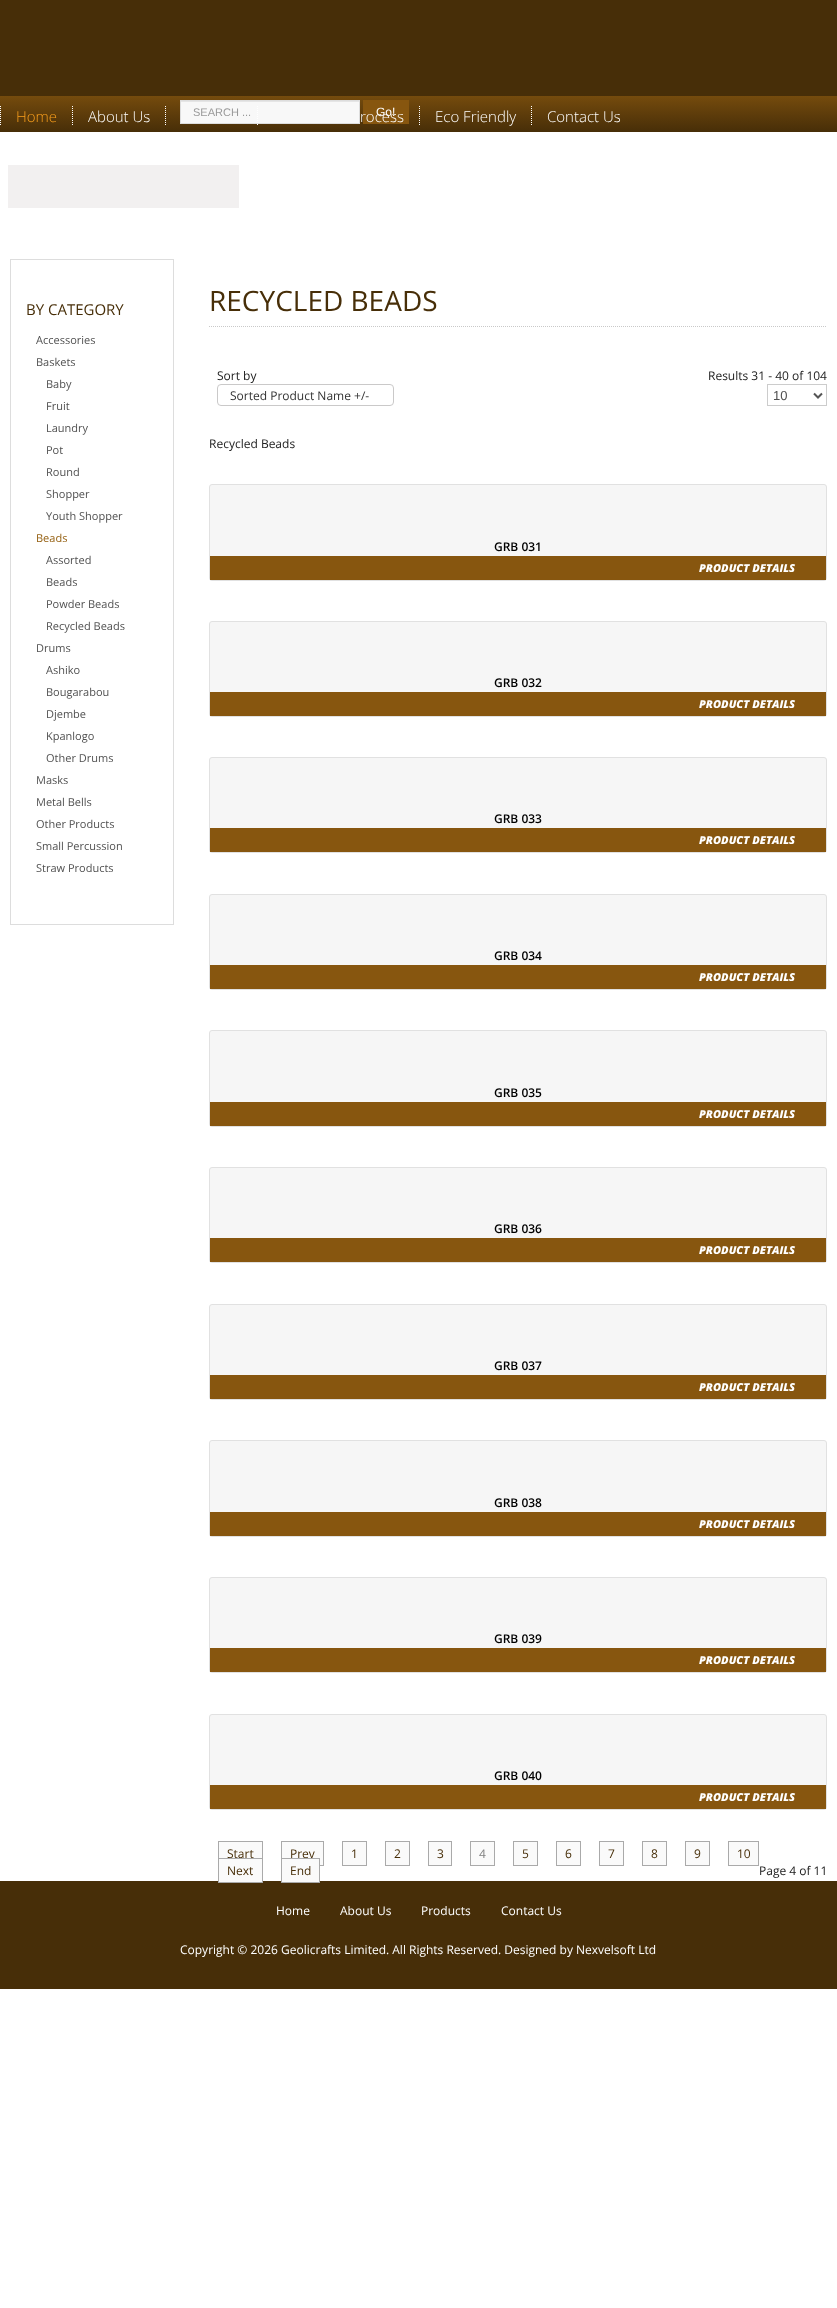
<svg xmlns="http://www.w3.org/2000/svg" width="837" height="2308">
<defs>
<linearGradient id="g1" gradientUnits="userSpaceOnUse" x1="419" y1="96" x2="419" y2="132"><stop offset="0" stop-color="#754b0d"/><stop offset="1" stop-color="#472e08"/></linearGradient>
</defs>
<rect width="100%" height="100%" fill="#fff"/>
<rect width="837" height="96" fill="#472e08"/>
<rect y="96" width="837" height="36" fill="url(#g1)"/>
<rect x="181" y="102" width="178" height="21" fill="#f8f8f8"/>
<rect x="181" y="101" width="178" height="1" fill="#e5e5e5"/>
<rect x="180.5" y="100.5" width="179" height="23" fill="none" stroke="#ddd"/>
<text x="193" y="116" style="font-family:Liberation Sans;font-size:11px;fill:#999">SEARCH ...</text>
<rect x="363" y="100" width="46" height="24" fill="#87560f"/>
<text x="376" y="116" style="font-family:Liberation Sans;font-size:12px;fill:#fff">Go!</text>
<path d="M.5 106v19" fill="none" stroke="#fff" stroke-dasharray="1 1"/>
<text x="16" y="122" style="font-family:Open Sans;font-size:15px;font-weight:300;fill:#fa9f1c">Home</text>
<path d="M72.5 106v19" fill="none" stroke="#fff" stroke-dasharray="1 1"/>
<text x="88" y="122" style="font-family:Open Sans;font-size:15px;font-weight:300;fill:#fff">About Us</text>
<path d="M165.5 106v19" fill="none" stroke="#fff" stroke-dasharray="1 1"/>
<path d="M257.5 106v19" fill="none" stroke="#fff" stroke-dasharray="1 1"/>
<text x="360" y="122" style="font-family:Open Sans;font-size:15px;font-weight:300;fill:#fff">rocess</text>
<path d="M419.5 106v19" fill="none" stroke="#fff" stroke-dasharray="1 1"/>
<text x="435" y="122" style="font-family:Open Sans;font-size:15px;font-weight:300;fill:#fff">Eco Friendly</text>
<path d="M531.5 106v19" fill="none" stroke="#fff" stroke-dasharray="1 1"/>
<text x="547" y="122" style="font-family:Open Sans;font-size:15px;font-weight:300;fill:#fff">Contact Us</text>
<rect x="8" y="165" width="231" height="43" fill="#f2f0f0"/>
<rect x="10.5" y="259.5" width="163" height="665" fill="none" stroke="#ddd"/>
<text x="26" y="315" style="font-family:Open Sans;font-size:15px;fill:#472e08">BY CATEGORY</text>
<text x="36" y="344" style="font-family:Open Sans;font-size:11px;fill:#515151">Accessories</text>
<text x="36" y="366" style="font-family:Open Sans;font-size:11px;fill:#515151">Baskets</text>
<text x="46" y="388" style="font-family:Open Sans;font-size:11px;fill:#515151">Baby</text>
<text x="46" y="410" style="font-family:Open Sans;font-size:11px;fill:#515151">Fruit</text>
<text x="46" y="432" style="font-family:Open Sans;font-size:11px;fill:#515151">Laundry</text>
<text x="46" y="454" style="font-family:Open Sans;font-size:11px;fill:#515151">Pot</text>
<text x="46" y="476" style="font-family:Open Sans;font-size:11px;fill:#515151">Round</text>
<text x="46" y="498" style="font-family:Open Sans;font-size:11px;fill:#515151">Shopper</text>
<text x="46" y="520" style="font-family:Open Sans;font-size:11px;fill:#515151">Youth Shopper</text>
<text x="36" y="542" style="font-family:Open Sans;font-size:11px;fill:#945f10">Beads</text>
<text x="46" y="564" style="font-family:Open Sans;font-size:11px;fill:#515151">Assorted</text>
<text x="46" y="586" style="font-family:Open Sans;font-size:11px;fill:#515151">Beads</text>
<text x="46" y="608" style="font-family:Open Sans;font-size:11px;fill:#515151">Powder Beads</text>
<text x="46" y="630" style="font-family:Open Sans;font-size:11px;fill:#515151">Recycled Beads</text>
<text x="36" y="652" style="font-family:Open Sans;font-size:11px;fill:#515151">Drums</text>
<text x="46" y="674" style="font-family:Open Sans;font-size:11px;fill:#515151">Ashiko</text>
<text x="46" y="696" style="font-family:Open Sans;font-size:11px;fill:#515151">Bougarabou</text>
<text x="46" y="718" style="font-family:Open Sans;font-size:11px;fill:#515151">Djembe</text>
<text x="46" y="740" style="font-family:Open Sans;font-size:11px;fill:#515151">Kpanlogo</text>
<text x="46" y="762" style="font-family:Open Sans;font-size:11px;fill:#515151">Other Drums</text>
<text x="36" y="784" style="font-family:Open Sans;font-size:11px;fill:#515151">Masks</text>
<text x="36" y="806" style="font-family:Open Sans;font-size:11px;fill:#515151">Metal Bells</text>
<text x="36" y="828" style="font-family:Open Sans;font-size:11px;fill:#515151">Other Products</text>
<text x="36" y="850" style="font-family:Open Sans;font-size:11px;fill:#515151">Small Percussion</text>
<text x="36" y="872" style="font-family:Open Sans;font-size:11px;fill:#515151">Straw Products</text>
<path d="M209 326.5h618" fill="none" stroke="#c9c9c9" stroke-dasharray="1 1"/>
<text x="209" y="311" style="font-family:Open Sans;font-size:28px;fill:#472e08">RECYCLED BEADS</text>
<text x="217" y="380" style="font-family:Open Sans;font-size:12px;fill:#212121">Sort by</text>
<rect x="217.5" y="384.5" width="176" height="21" rx="3.5" fill="none" stroke="#cac9c9"/>
<text x="230" y="400" style="font-family:Open Sans;font-size:12px;fill:#333">Sorted Product Name +/-</text>
<text x="708" y="380" style="font-family:Open Sans;font-size:12px;fill:#212121">Results 31 - 40 of 104</text>
<rect x="767.5" y="384.5" width="59" height="21" fill="none" stroke="#ccc"/>
<path d="M814 393.5l4 4l4-4" fill="none" stroke="#555" stroke-width="2"/>
<text x="773" y="400" style="font-family:Liberation Sans;font-size:13px;fill:#515151">10</text>
<text x="209" y="448" style="font-family:Open Sans;font-size:12px;fill:#212121">Recycled Beads</text>
<rect x="209.5" y="484.5" width="617" height="96" rx="2.5" fill="#f6f6f6" stroke="#e1e1e1"/>
<text x="494" y="551" style="font-family:Open Sans;font-size:12px;font-weight:600;fill:#000">GRB 031</text>
<rect x="210" y="556" width="616" height="24" fill="#87560f"/>
<text x="699" y="572" style="font-family:Open Sans;font-size:11px;font-weight:800;font-style:italic;fill:#fff">PRODUCT DETAILS</text>
<rect x="209.5" y="621.5" width="617" height="95" rx="2.5" fill="#f6f6f6" stroke="#e1e1e1"/>
<text x="494" y="687" style="font-family:Open Sans;font-size:12px;font-weight:600;fill:#000">GRB 032</text>
<rect x="210" y="692" width="616" height="24" fill="#87560f"/>
<text x="699" y="708" style="font-family:Open Sans;font-size:11px;font-weight:800;font-style:italic;fill:#fff">PRODUCT DETAILS</text>
<rect x="209.5" y="757.5" width="617" height="95" rx="2.5" fill="#f6f6f6" stroke="#e1e1e1"/>
<text x="494" y="823" style="font-family:Open Sans;font-size:12px;font-weight:600;fill:#000">GRB 033</text>
<rect x="210" y="828" width="616" height="24" fill="#87560f"/>
<text x="699" y="844" style="font-family:Open Sans;font-size:11px;font-weight:800;font-style:italic;fill:#fff">PRODUCT DETAILS</text>
<rect x="209.5" y="894.5" width="617" height="95" rx="2.5" fill="#f6f6f6" stroke="#e1e1e1"/>
<text x="494" y="960" style="font-family:Open Sans;font-size:12px;font-weight:600;fill:#000">GRB 034</text>
<rect x="210" y="965" width="616" height="24" fill="#87560f"/>
<text x="699" y="981" style="font-family:Open Sans;font-size:11px;font-weight:800;font-style:italic;fill:#fff">PRODUCT DETAILS</text>
<rect x="209.5" y="1030.5" width="617" height="96" rx="2.5" fill="#f6f6f6" stroke="#e1e1e1"/>
<text x="494" y="1097" style="font-family:Open Sans;font-size:12px;font-weight:600;fill:#000">GRB 035</text>
<rect x="210" y="1102" width="616" height="24" fill="#87560f"/>
<text x="699" y="1118" style="font-family:Open Sans;font-size:11px;font-weight:800;font-style:italic;fill:#fff">PRODUCT DETAILS</text>
<rect x="209.5" y="1167.5" width="617" height="95" rx="2.5" fill="#f6f6f6" stroke="#e1e1e1"/>
<text x="494" y="1233" style="font-family:Open Sans;font-size:12px;font-weight:600;fill:#000">GRB 036</text>
<rect x="210" y="1238" width="616" height="24" fill="#87560f"/>
<text x="699" y="1254" style="font-family:Open Sans;font-size:11px;font-weight:800;font-style:italic;fill:#fff">PRODUCT DETAILS</text>
<rect x="209.5" y="1304.5" width="617" height="95" rx="2.5" fill="#f6f6f6" stroke="#e1e1e1"/>
<text x="494" y="1370" style="font-family:Open Sans;font-size:12px;font-weight:600;fill:#000">GRB 037</text>
<rect x="210" y="1375" width="616" height="24" fill="#87560f"/>
<text x="699" y="1391" style="font-family:Open Sans;font-size:11px;font-weight:800;font-style:italic;fill:#fff">PRODUCT DETAILS</text>
<rect x="209.5" y="1440.5" width="617" height="96" rx="2.5" fill="#f6f6f6" stroke="#e1e1e1"/>
<text x="494" y="1507" style="font-family:Open Sans;font-size:12px;font-weight:600;fill:#000">GRB 038</text>
<rect x="210" y="1512" width="616" height="24" fill="#87560f"/>
<text x="699" y="1528" style="font-family:Open Sans;font-size:11px;font-weight:800;font-style:italic;fill:#fff">PRODUCT DETAILS</text>
<rect x="209.5" y="1577.5" width="617" height="95" rx="2.5" fill="#f6f6f6" stroke="#e1e1e1"/>
<text x="494" y="1643" style="font-family:Open Sans;font-size:12px;font-weight:600;fill:#000">GRB 039</text>
<rect x="210" y="1648" width="616" height="24" fill="#87560f"/>
<text x="699" y="1664" style="font-family:Open Sans;font-size:11px;font-weight:800;font-style:italic;fill:#fff">PRODUCT DETAILS</text>
<rect x="209.5" y="1714.5" width="617" height="95" rx="2.5" fill="#f6f6f6" stroke="#e1e1e1"/>
<text x="494" y="1780" style="font-family:Open Sans;font-size:12px;font-weight:600;fill:#000">GRB 040</text>
<rect x="210" y="1785" width="616" height="24" fill="#87560f"/>
<text x="699" y="1801" style="font-family:Open Sans;font-size:11px;font-weight:800;font-style:italic;fill:#fff">PRODUCT DETAILS</text>
<rect x="219" y="1842" width="43" height="16" fill="#fafafa"/>
<rect x="218.5" y="1841.5" width="44" height="24" fill="none" stroke="#aaa"/>
<text x="227" y="1858" style="font-family:Open Sans;font-size:12px;fill:#472e08">Start</text>
<rect x="281.5" y="1841.5" width="42" height="24" fill="#fafafa" stroke="#aaa"/>
<text x="290" y="1858" style="font-family:Open Sans;font-size:12px;fill:#472e08">Prev</text>
<rect x="342.5" y="1841.5" width="24" height="24" fill="#fafafa" stroke="#aaa"/>
<text x="351" y="1858" style="font-family:Open Sans;font-size:12px;fill:#472e08">1</text>
<rect x="385.5" y="1841.5" width="24" height="24" fill="#fafafa" stroke="#aaa"/>
<text x="394" y="1858" style="font-family:Open Sans;font-size:12px;fill:#472e08">2</text>
<rect x="428.5" y="1841.5" width="23" height="24" fill="#fafafa" stroke="#aaa"/>
<text x="437" y="1858" style="font-family:Open Sans;font-size:12px;fill:#472e08">3</text>
<rect x="470.5" y="1841.5" width="24" height="24" fill="#fafafa" stroke="#aaa"/>
<text x="479" y="1858" style="font-family:Open Sans;font-size:12px;fill:#808080">4</text>
<rect x="513.5" y="1841.5" width="24" height="24" fill="#fafafa" stroke="#aaa"/>
<text x="522" y="1858" style="font-family:Open Sans;font-size:12px;fill:#472e08">5</text>
<rect x="556.5" y="1841.5" width="24" height="24" fill="#fafafa" stroke="#aaa"/>
<text x="565" y="1858" style="font-family:Open Sans;font-size:12px;fill:#472e08">6</text>
<rect x="599.5" y="1841.5" width="24" height="24" fill="#fafafa" stroke="#aaa"/>
<text x="608" y="1858" style="font-family:Open Sans;font-size:12px;fill:#472e08">7</text>
<rect x="642.5" y="1841.5" width="24" height="24" fill="#fafafa" stroke="#aaa"/>
<text x="651" y="1858" style="font-family:Open Sans;font-size:12px;fill:#472e08">8</text>
<rect x="685.5" y="1841.5" width="24" height="24" fill="#fafafa" stroke="#aaa"/>
<text x="694" y="1858" style="font-family:Open Sans;font-size:12px;fill:#472e08">9</text>
<rect x="728.5" y="1841.5" width="30" height="24" fill="#fafafa" stroke="#aaa"/>
<text x="737" y="1858" style="font-family:Open Sans;font-size:12px;fill:#472e08">10</text>
<rect y="1881" width="837" height="108" fill="#472e08"/>
<rect x="218.5" y="1858.5" width="44" height="24" fill="#fafafa" stroke="#aaa"/>
<text x="227" y="1875" style="font-family:Open Sans;font-size:12px;fill:#472e08">Next</text>
<rect x="282" y="1865" width="37" height="17" fill="#fafafa"/>
<rect x="281.5" y="1858.5" width="38" height="24" fill="none" stroke="#aaa"/>
<text x="290" y="1875" style="font-family:Open Sans;font-size:12px;fill:#472e08">End</text>
<text x="759" y="1875" style="font-family:Open Sans;font-size:12px;fill:#212121">Page 4 of 11</text>
<text x="276" y="1915" style="font-family:Open Sans;font-size:12px;fill:#fff">Home</text>
<text x="340" y="1915" style="font-family:Open Sans;font-size:12px;fill:#fff">About Us</text>
<text x="421" y="1915" style="font-family:Open Sans;font-size:12px;fill:#fff">Products</text>
<text x="501" y="1915" style="font-family:Open Sans;font-size:12px;fill:#fff">Contact Us</text>
<text x="180" y="1954" style="font-family:Open Sans;font-size:12px;fill:#fff">Copyright © 2026 Geolicrafts Limited. All Rights Reserved. Designed by Nexvelsoft Ltd</text>
</svg>
